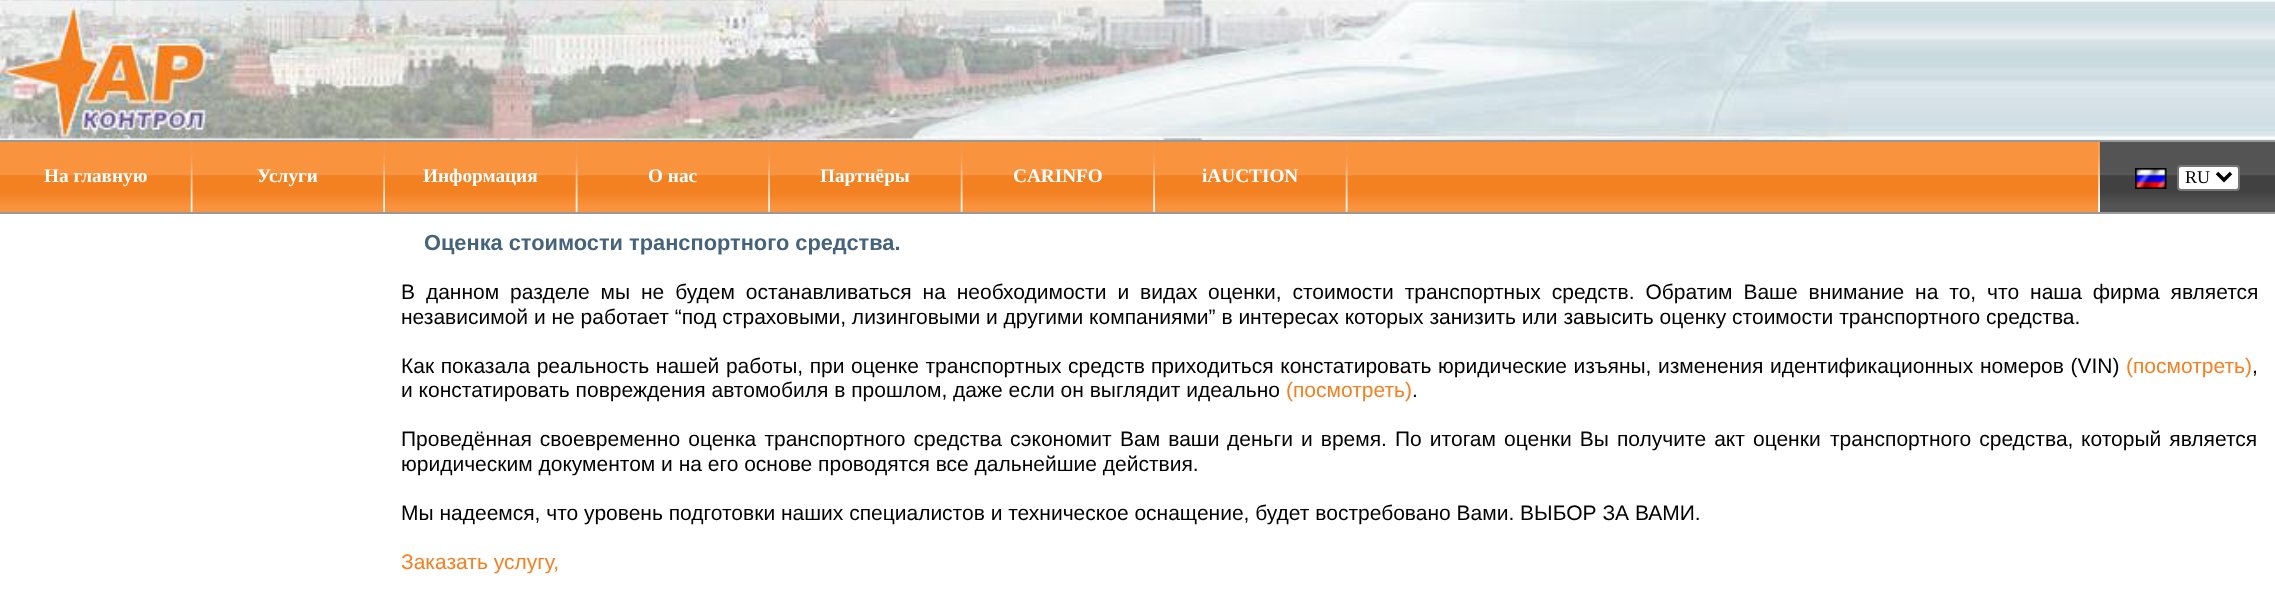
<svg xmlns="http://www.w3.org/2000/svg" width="2275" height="602">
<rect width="100%" height="100%" fill="#fff"/>
<image x="0" y="0" width="2275" height="140" href="media/1.png"/>
<image x="0" y="142" width="2099" height="70" href="media/2.png"/>
<rect y="140" width="2275" height="2" fill="#999"/>
<rect y="212" width="2275" height="2" fill="#999"/>
<text x="44" y="182" style="font-family:Liberation Serif;font-size:19.25px;font-weight:bold;fill:#fff">На главную</text>
<image x="190" y="141" width="3" height="71" href="media/3.png"/>
<text x="257" y="182" style="font-family:Liberation Serif;font-size:19.25px;font-weight:bold;fill:#fff">Услуги</text>
<image x="383" y="141" width="2" height="71" href="media/4.png"/>
<text x="423" y="182" style="font-family:Liberation Serif;font-size:19.25px;font-weight:bold;fill:#fff">Информация</text>
<image x="575" y="141" width="3" height="71" href="media/3.png"/>
<text x="648" y="182" style="font-family:Liberation Serif;font-size:19.25px;font-weight:bold;fill:#fff">О нас</text>
<image x="768" y="141" width="2" height="71" href="media/4.png"/>
<text x="820" y="182" style="font-family:Liberation Serif;font-size:19.25px;font-weight:bold;fill:#fff">Партнёры</text>
<image x="960" y="141" width="3" height="71" href="media/3.png"/>
<text x="1013" y="182" style="font-family:Liberation Serif;font-size:19.25px;font-weight:bold;fill:#fff">CARINFO</text>
<image x="1153" y="141" width="2" height="71" href="media/4.png"/>
<text x="1202" y="182" style="font-family:Liberation Serif;font-size:19.25px;font-weight:bold;fill:#fff">iAUCTION</text>
<image x="1345" y="141" width="3" height="71" href="media/3.png"/>
<image x="2098" y="141" width="2" height="71" href="media/5.png"/>
<image x="2100" y="142" width="175" height="70" href="media/6.png"/>
<image x="2135" y="168" width="32" height="21" href="media/7.png"/>
<rect x="2178" y="166" width="61" height="24" rx="3" fill="#fff" stroke="#767676" stroke-width="2"/>
<path d="M2217 173l7 7l7-7" fill="none" stroke="#000" stroke-width="3.5"/>
<text x="2185" y="183" style="font-family:Liberation Serif;font-size:18px;fill:#000">RU</text>
<text x="424" y="250" style="font-family:Liberation Sans;font-size:21.8px;font-weight:bold;fill:#45637a">Оценка стоимости транспортного средства.</text>
<text x="401" y="299" word-spacing="5.1" style="font-family:Liberation Sans;font-size:21px;fill:#000">В данном разделе мы не будем останавливаться на необходимости и видах</text>
<text x="1208" y="299" word-spacing="5.1" style="font-family:Liberation Sans;font-size:21px;fill:#000">оценки, стоимости транспортных средств. Обратим Ваше внимание на то, что наша фирма является</text>
<text x="401" y="324" style="font-family:Liberation Sans;font-size:21px;fill:#000">независимой и не работает “под страховыми, лизинговыми и другими компаниями” в интересах которых занизить или завысить оценку стоимости транспортного средства.</text>
<text x="401" y="373" word-spacing="0.75" style="font-family:Liberation Sans;font-size:21px;fill:#000">Как показала реальность нашей работы, при оценке транспортных</text>
<text x="1068" y="373" style="font-family:Liberation Sans;font-size:21px;fill:#000">средств</text>
<text x="1151" y="373" word-spacing="0.75" style="font-family:Liberation Sans;font-size:21px;fill:#000">приходиться констатировать юридические изъяны, изменения</text>
<text x="1770" y="373" style="font-family:Liberation Sans;font-size:21px;fill:#000">идентификационных</text>
<text x="1980" y="373" word-spacing="0.75" style="font-family:Liberation Sans;font-size:21px;fill:#000">номеров (VIN)</text>
<text x="2126" y="373" style="font-family:Liberation Sans;font-size:21px;fill:#f38122">(посмотреть)</text>
<text x="2252" y="373" style="font-family:Liberation Sans;font-size:21px;fill:#000">,</text>
<text x="401" y="397" style="font-family:Liberation Sans;font-size:21px;fill:#000">и констатировать повреждения автомобиля в прошлом, даже если он выглядит идеально</text>
<text x="1286" y="397" style="font-family:Liberation Sans;font-size:21px;fill:#f38122">(посмотреть)</text>
<text x="1412" y="397" style="font-family:Liberation Sans;font-size:21px;fill:#000">.</text>
<text x="401" y="446" word-spacing="2.25" style="font-family:Liberation Sans;font-size:21px;fill:#000">Проведённая своевременно оценка транспортного средства сэкономит</text>
<text x="1120" y="446" word-spacing="2.25" style="font-family:Liberation Sans;font-size:21px;fill:#000">Вам ваши</text>
<text x="1227" y="446" word-spacing="2.25" style="font-family:Liberation Sans;font-size:21px;fill:#000">деньги и время. По итогам оценки Вы получите акт оценки</text>
<text x="1830" y="446" word-spacing="2.25" style="font-family:Liberation Sans;font-size:21px;fill:#000">транспортного средства,</text>
<text x="2081" y="446" word-spacing="2.25" style="font-family:Liberation Sans;font-size:21px;fill:#000">который является</text>
<text x="401" y="471" style="font-family:Liberation Sans;font-size:21px;fill:#000">юридическим документом и на его основе проводятся все дальнейшие действия.</text>
<text x="401" y="520" style="font-family:Liberation Sans;font-size:21px;fill:#000">Мы надеемся, что уровень подготовки наших специалистов и техническое оснащение, будет востребовано Вами. ВЫБОР ЗА ВАМИ.</text>
<text x="401" y="569" style="font-family:Liberation Sans;font-size:21px;fill:#f38122">Заказать услугу,</text>
</svg>
